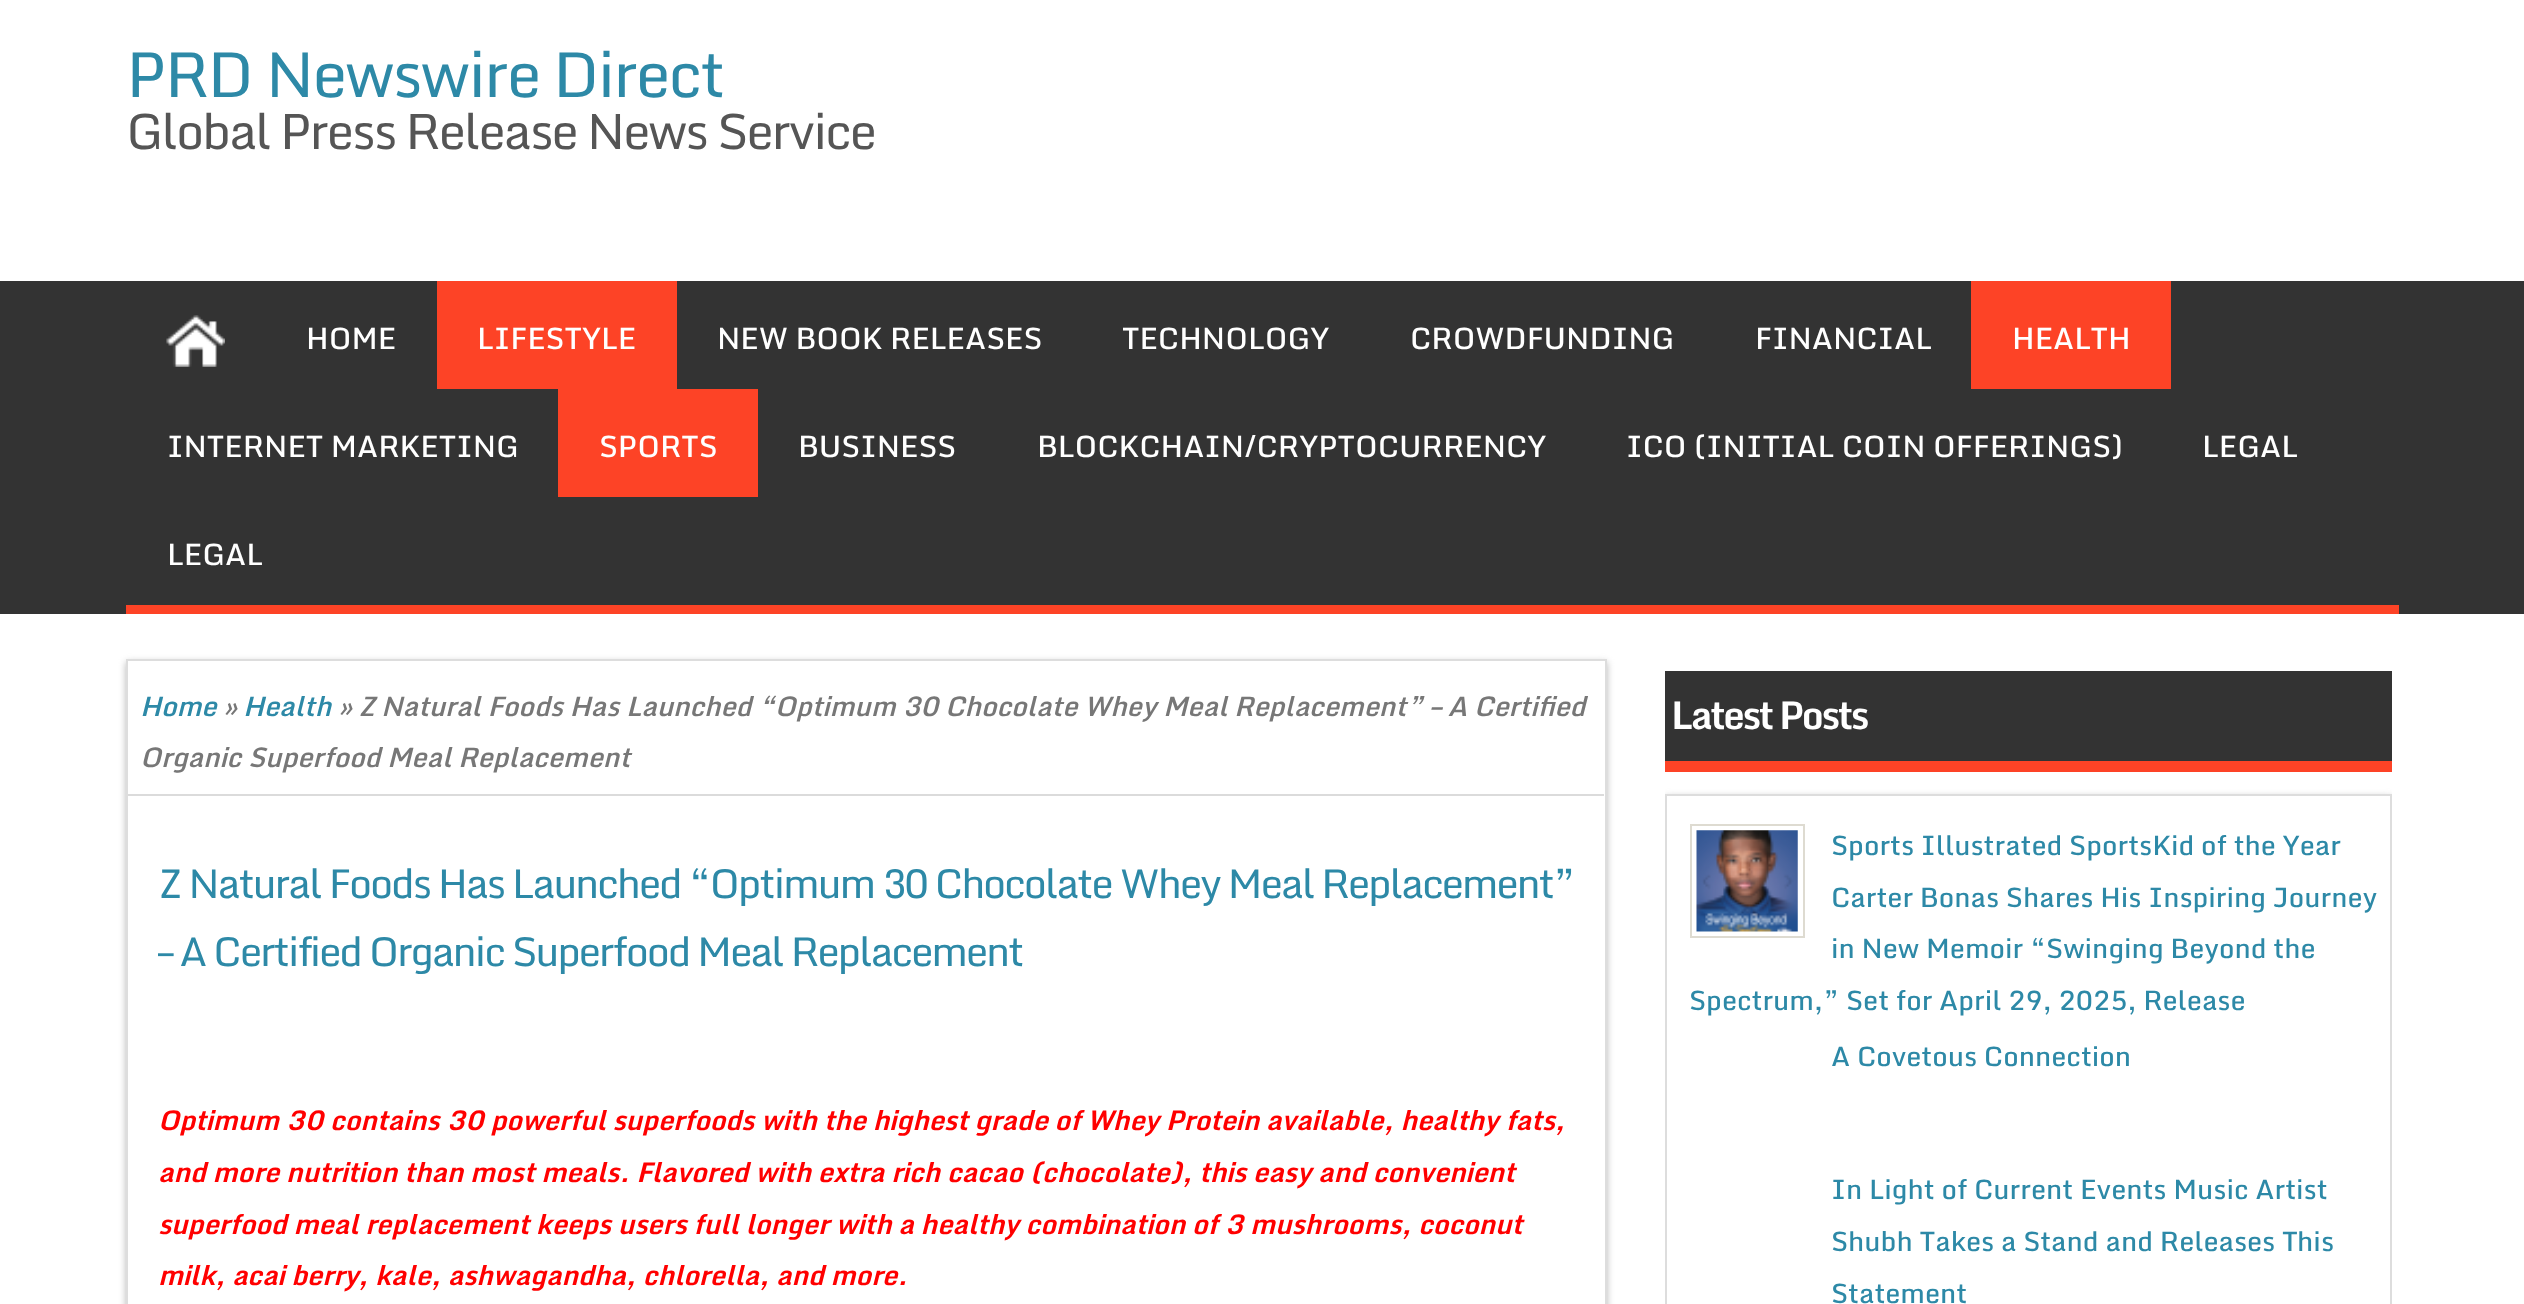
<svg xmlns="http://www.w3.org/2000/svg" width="2524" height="1304">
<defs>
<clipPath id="clip1"><rect x="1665" y="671" width="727" height="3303"/></clipPath>
</defs>
<rect width="100%" height="100%" fill="#fff"/>
<text x="126" y="97" style="font-family:Monda;font-size:63px;letter-spacing:-2.25px;fill:#2d89a7">PRD Newswire Direct</text>
<text x="126" y="149" style="font-family:Monda;font-size:49.5px;letter-spacing:-2.25px;fill:#555">Global Press Release News Service</text>
<rect y="281" width="2524" height="333" fill="#333"/>
<rect x="126" y="605" width="2273" height="9" fill="#fd4326"/>
<image x="166" y="315" width="59" height="52" href="media/1.png"/>
<text x="306" y="349" style="font-family:Monda;font-size:29.75px;font-weight:500;fill:#fff">HOME</text>
<rect x="437" y="281" width="240" height="108" fill="#fd4326"/>
<text x="477" y="349" style="font-family:Monda;font-size:29.75px;font-weight:500;fill:#fff">LIFESTYLE</text>
<text x="717" y="349" style="font-family:Monda;font-size:29.75px;font-weight:500;fill:#fff">NEW BOOK RELEASES</text>
<text x="1122" y="349" style="font-family:Monda;font-size:29.75px;font-weight:500;fill:#fff">TECHNOLOGY</text>
<text x="1410" y="349" style="font-family:Monda;font-size:29.75px;font-weight:500;fill:#fff">CROWDFUNDING</text>
<text x="1755" y="349" style="font-family:Monda;font-size:29.75px;font-weight:500;fill:#fff">FINANCIAL</text>
<rect x="1971" y="281" width="200" height="108" fill="#fd4326"/>
<text x="2012" y="349" style="font-family:Monda;font-size:29.75px;font-weight:500;fill:#fff">HEALTH</text>
<text x="167" y="457" style="font-family:Monda;font-size:29.75px;font-weight:500;fill:#fff">INTERNET MARKETING</text>
<rect x="558" y="389" width="200" height="108" fill="#fd4326"/>
<text x="599" y="457" style="font-family:Monda;font-size:29.75px;font-weight:500;fill:#fff">SPORTS</text>
<text x="798" y="457" style="font-family:Monda;font-size:29.75px;font-weight:500;fill:#fff">BUSINESS</text>
<text x="1037" y="457" style="font-family:Monda;font-size:29.75px;font-weight:500;fill:#fff">BLOCKCHAIN/CRYPTOCURRENCY</text>
<text x="1626" y="457" style="font-family:Monda;font-size:29.75px;font-weight:500;fill:#fff">ICO (INITIAL COIN OFFERINGS)</text>
<text x="2202" y="457" style="font-family:Monda;font-size:29.75px;font-weight:500;fill:#fff">LEGAL</text>
<text x="167" y="565" style="font-family:Monda;font-size:29.75px;font-weight:500;fill:#fff">LEGAL</text>
<rect x="126" y="662" width="1481" height="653" fill="#b5b5b5" filter="blur(3.5px)"/>
<rect x="127" y="660" width="1479" height="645" fill="#fff" stroke="#ddd" stroke-width="2"/>
<rect x="128" y="794" width="1476" height="2" fill="#dbdbdb"/>
<text x="140" y="716" style="font-family:Monda;font-size:27px;font-weight:600;font-style:italic;fill:#2d89a7">Home</text>
<text x="223" y="716" style="font-family:Monda;font-size:27px;font-weight:600;font-style:italic;fill:#777">»</text>
<text x="243" y="716" style="font-family:Monda;font-size:27px;font-weight:600;font-style:italic;fill:#2d89a7">Health</text>
<text x="338" y="716" style="font-family:Monda;font-size:27px;font-weight:600;font-style:italic;fill:#777">» Z Natural Foods Has Launched “Optimum 30 Chocolate Whey Meal Replacement” – A Certified</text>
<text x="140" y="767" style="font-family:Monda;font-size:27px;font-weight:600;font-style:italic;fill:#777">Organic Superfood Meal Replacement</text>
<text x="158" y="898" style="font-family:Monda;font-size:40.5px;letter-spacing:-2.25px;fill:#2d89a7">Z Natural Foods Has Launched “Optimum 30 Chocolate Whey Meal Replacement”</text>
<text x="158" y="966" style="font-family:Monda;font-size:40.5px;letter-spacing:-2.25px;fill:#2d89a7">– A Certified Organic Superfood Meal Replacement</text>
<text x="158" y="1130" style="font-family:Monda;font-size:27px;font-weight:bold;font-style:italic;fill:#f00">Optimum 30 contains 30 powerful superfoods with the highest grade of Whey Protein available, healthy fats,</text>
<text x="158" y="1182" style="font-family:Monda;font-size:27px;font-weight:bold;font-style:italic;fill:#f00">and more nutrition than most meals. Flavored with extra rich cacao (chocolate), this easy and convenient</text>
<text x="158" y="1234" style="font-family:Monda;font-size:27px;font-weight:bold;font-style:italic;fill:#f00">superfood meal replacement keeps users full longer with a healthy combination of 3 mushrooms, coconut</text>
<text x="158" y="1285" style="font-family:Monda;font-size:27px;font-weight:bold;font-style:italic;fill:#f00">milk, acai berry, kale, ashwagandha, chlorella, and more.</text>
<rect x="1665" y="671" width="727" height="90" fill="#333"/>
<rect x="1665" y="761" width="727" height="11" fill="#fd4326"/>
<text x="1671" y="729" style="font-family:Monda;font-size:38.25px;font-weight:bold;letter-spacing:-2.25px;fill:#fff">Latest Posts</text>
<g clip-path="url(#clip1)">
<rect x="1665" y="797" width="727" height="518" fill="#b5b5b5" filter="blur(3.5px)"/>
</g>
<rect x="1666" y="795" width="725" height="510" fill="#fff" stroke="#ddd" stroke-width="2"/>
<rect x="1691" y="825" width="113" height="112" fill="none" stroke="#dedbd1" stroke-width="2"/>
<image x="1696" y="830" width="102" height="102" href="media/2.png"/>
<text x="1831" y="855" style="font-family:Monda;font-size:27px;font-weight:500;fill:#2d89a7">Sports Illustrated SportsKid of the Year</text>
<text x="1831" y="907" style="font-family:Monda;font-size:27px;font-weight:500;fill:#2d89a7">Carter Bonas Shares His Inspiring Journey</text>
<text x="1831" y="958" style="font-family:Monda;font-size:27px;font-weight:500;fill:#2d89a7">in New Memoir “Swinging Beyond the</text>
<text x="1689" y="1010" style="font-family:Monda;font-size:27px;font-weight:500;fill:#2d89a7">Spectrum,” Set for April 29, 2025, Release</text>
<text x="1831" y="1066" style="font-family:Monda;font-size:27px;font-weight:500;fill:#2d89a7">A Covetous Connection</text>
<text x="1831" y="1199" style="font-family:Monda;font-size:27px;font-weight:500;fill:#2d89a7">In Light of Current Events Music Artist</text>
<text x="1831" y="1251" style="font-family:Monda;font-size:27px;font-weight:500;fill:#2d89a7">Shubh Takes a Stand and Releases This</text>
<text x="1831" y="1303" style="font-family:Monda;font-size:27px;font-weight:500;fill:#2d89a7">Statement</text>
</svg>
